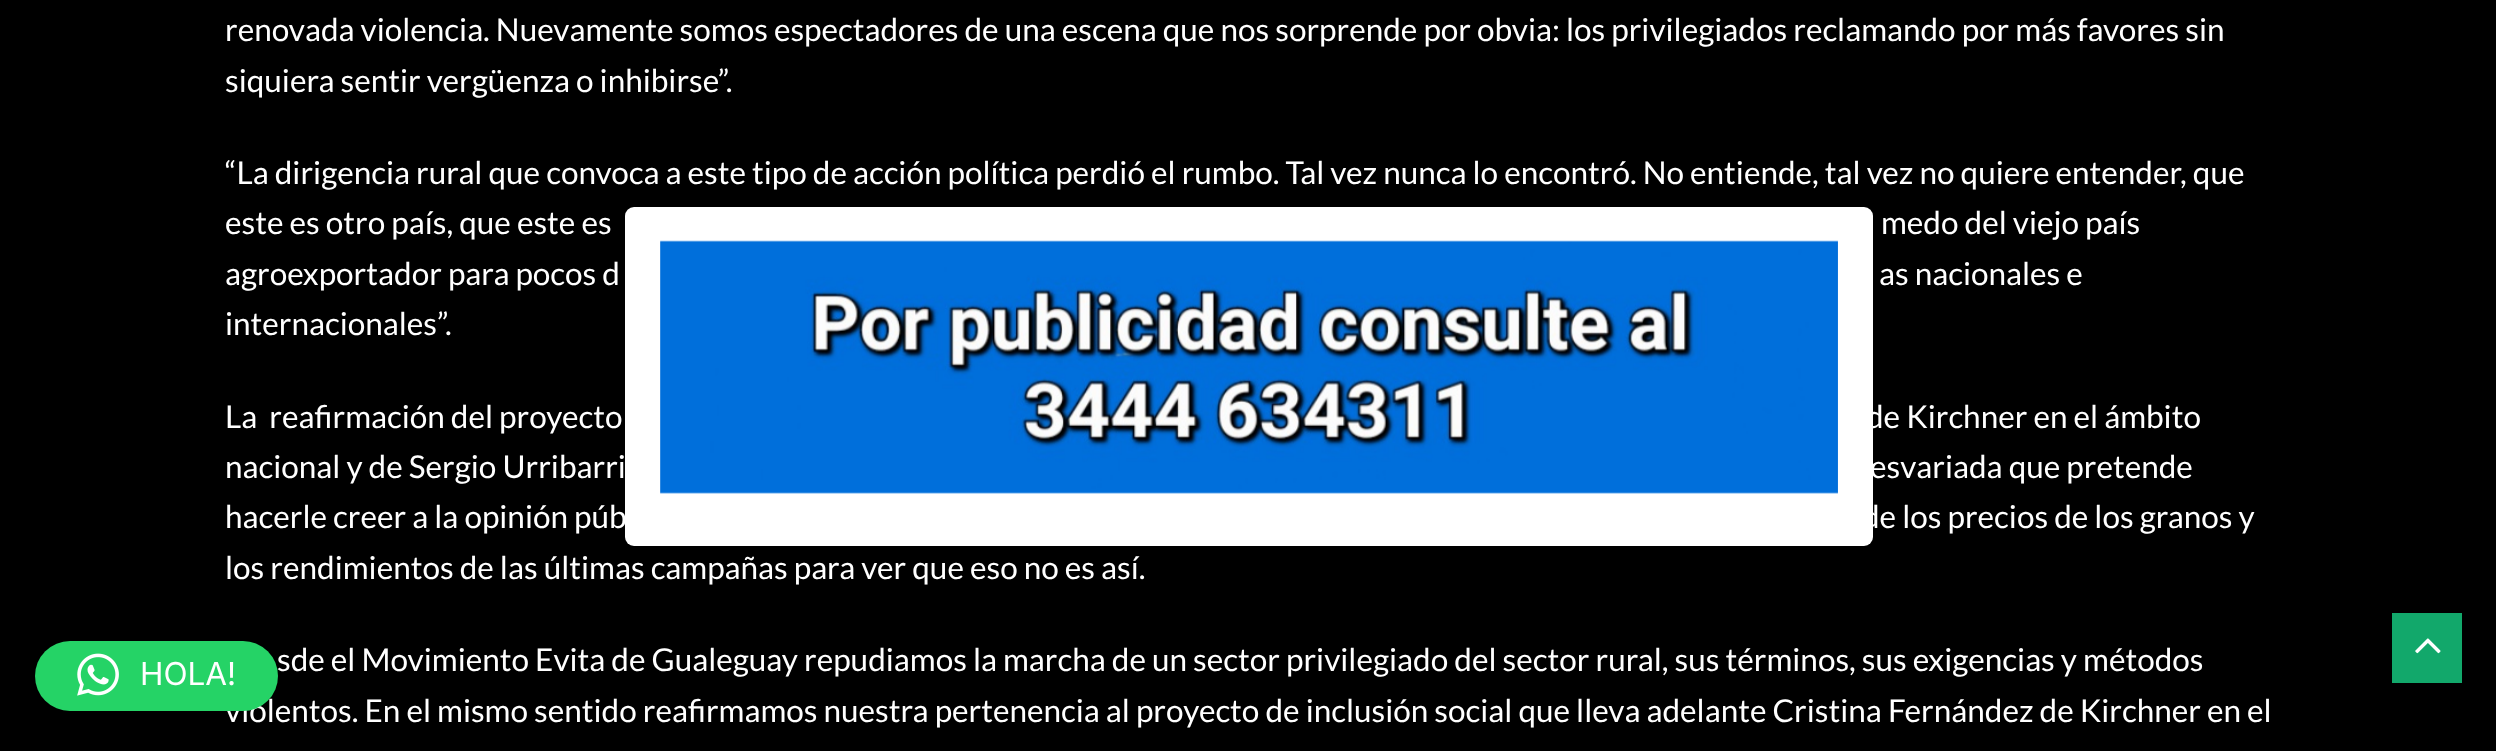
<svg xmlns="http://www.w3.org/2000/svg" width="2496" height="751">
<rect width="100%" height="100%" fill="#000"/>
<rect x="35" y="644" width="243" height="70" rx="35" fill="#00000029" filter="blur(28px)"/>
<rect x="35" y="642" width="243" height="70" rx="35" fill="#0000000f" filter="blur(5px)"/>
<text x="277" y="671" style="font-family:Lato;font-size:31.5px;fill:#fff">sde el Movimiento Evita de Gualeguay repudiamos la marcha de un sector privilegiado del sector rural, sus términos, sus exigencias y métodos</text>
<text x="225" y="722" style="font-family:Lato;font-size:31.5px;fill:#fff">violentos. En el mismo sentido reafirmamos nuestra pertenencia al proyecto de inclusión social que lleva adelante Cristina Fernández de Kirchner en el</text>
<rect x="35" y="641" width="243" height="70" rx="35" fill="#25d366"/>
<image x="77" y="653" width="42" height="43" href="media/1.png"/>
<text x="140" y="685" style="font-family:Inter;font-size:31.5px;fill:#fff">HOLA!</text>
<text x="225" y="41" style="font-family:Lato;font-size:31.5px;fill:#fff">renovada violencia. Nuevamente somos espectadores de una escena que nos sorprende por obvia: los privilegiados reclamando por más favores sin</text>
<text x="225" y="92" style="font-family:Lato;font-size:31.5px;fill:#fff">siquiera sentir vergüenza o inhibirse”.</text>
<text x="225" y="184" style="font-family:Lato;font-size:31.5px;fill:#fff">“La dirigencia rural que convoca a este tipo de acción política perdió el rumbo. Tal vez nunca lo encontró. No entiende, tal vez no quiere entender, que</text>
<text x="225" y="234" style="font-family:Lato;font-size:31.5px;fill:#fff">este es otro país, que este es</text>
<text x="1881" y="234" style="font-family:Lato;font-size:31.5px;fill:#fff">medo del viejo país</text>
<text x="225" y="285" style="font-family:Lato;font-size:31.5px;fill:#fff">agroexportador para pocos d</text>
<text x="1879" y="285" style="font-family:Lato;font-size:31.5px;fill:#fff">as nacionales e</text>
<text x="225" y="335" style="font-family:Lato;font-size:31.5px;fill:#fff">internacionales”.</text>
<text x="225" y="428" style="font-family:Lato;font-size:31.5px;fill:#fff" xml:space="preserve">La  reafirmación del proyecto</text>
<text x="1866" y="428" style="font-family:Lato;font-size:31.5px;fill:#fff">de Kirchner en el ámbito</text>
<text x="225" y="478" style="font-family:Lato;font-size:31.5px;fill:#fff">nacional y de Sergio Urribarri</text>
<text x="1870" y="478" style="font-family:Lato;font-size:31.5px;fill:#fff">esvariada que pretende</text>
<text x="225" y="528" style="font-family:Lato;font-size:31.5px;fill:#fff">hacerle creer a la opinión púb</text>
<text x="1862" y="528" style="font-family:Lato;font-size:31.5px;fill:#fff">de los precios de los granos y</text>
<text x="225" y="579" style="font-family:Lato;font-size:31.5px;fill:#fff">los rendimientos de las últimas campañas para ver que eso no es así.</text>
<rect x="625" y="207" width="1248" height="339" rx="9" fill="#fff"/>
<image x="660" y="240" width="1178" height="254" href="media/2.png"/>
<rect x="2392" y="613" width="70" height="70" fill="#12a86b"/>
<image x="2415" y="638" width="26" height="16" href="media/3.png"/>
</svg>
